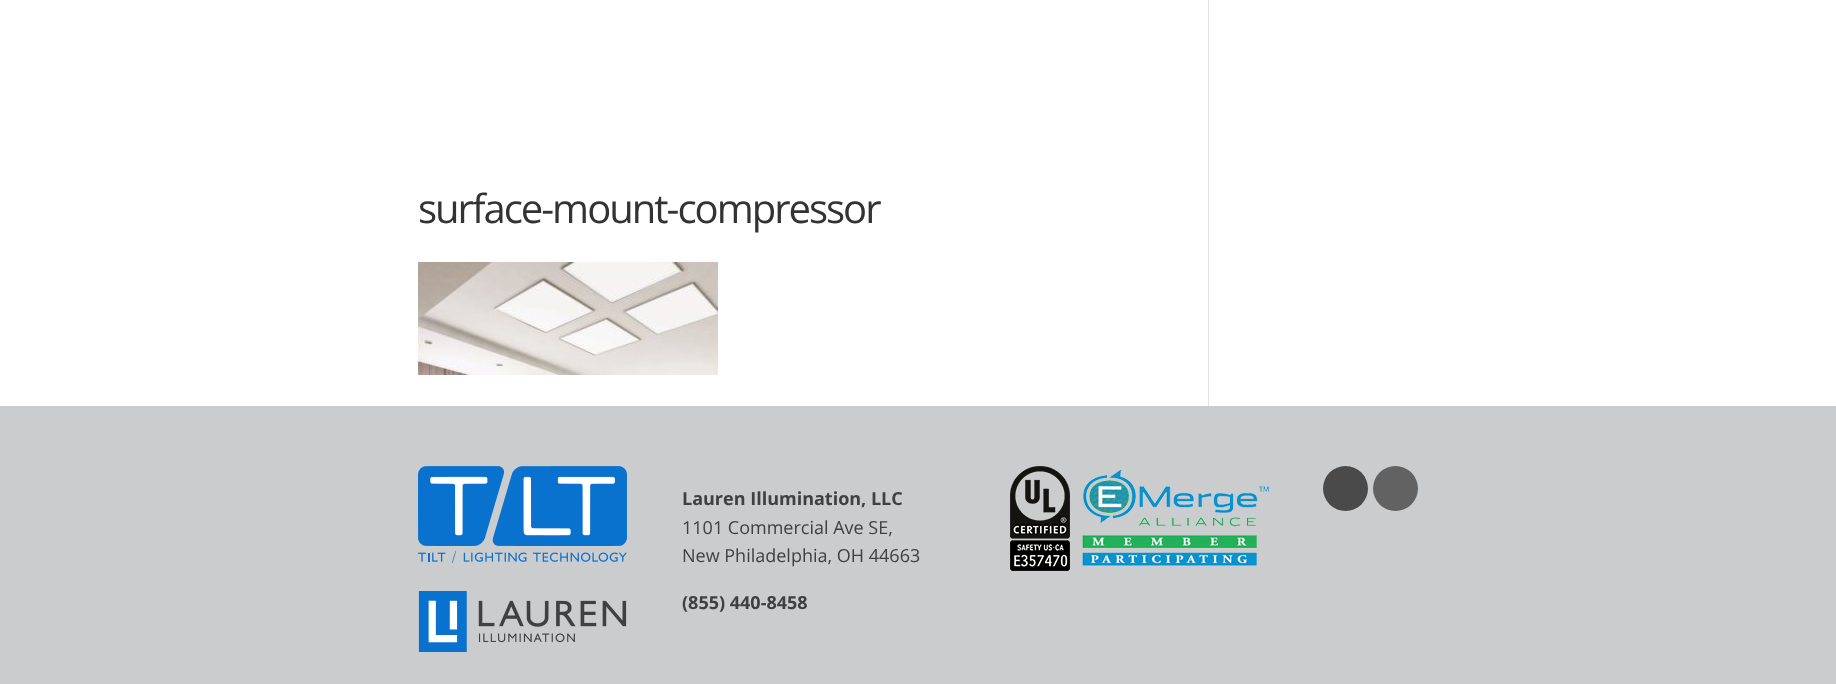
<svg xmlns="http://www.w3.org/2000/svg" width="1836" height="684">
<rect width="100%" height="100%" fill="#fff"/>
<text x="418" y="223" style="font-family:Open Sans;font-size:40px;letter-spacing:-2px;fill:#333">surface-mount-compressor</text>
<image x="418" y="262" width="300" height="113" href="media/1.png"/>
<rect x="1208" width="1" height="406" fill="#e2e2e2"/>
<rect y="406" width="1836" height="278" fill="#cbccce"/>
<image x="418" y="466" width="209" height="97" href="media/2.png"/>
<image x="418" y="591" width="209" height="61" href="media/3.png"/>
<text x="682" y="505" style="font-family:Open Sans;font-size:18px;font-weight:bold;fill:#404041">Lauren Illumination, LLC</text>
<text x="682" y="534" style="font-family:Open Sans;font-size:18px;fill:#404041">1101 Commercial Ave SE,</text>
<text x="682" y="562" style="font-family:Open Sans;font-size:18px;fill:#404041">New Philadelphia, OH 44663</text>
<image x="1010" y="466" width="259" height="105" href="media/4.png"/>
<text x="682" y="609" style="font-family:Open Sans;font-size:18px;font-weight:bold;fill:#404041">(855) 440-8458</text>
<circle cx="1345.5" cy="488.5" r="22.5" fill="#4a4a4a"/>
<circle cx="1395.5" cy="488.5" r="22.5" fill="#626262"/>
</svg>
